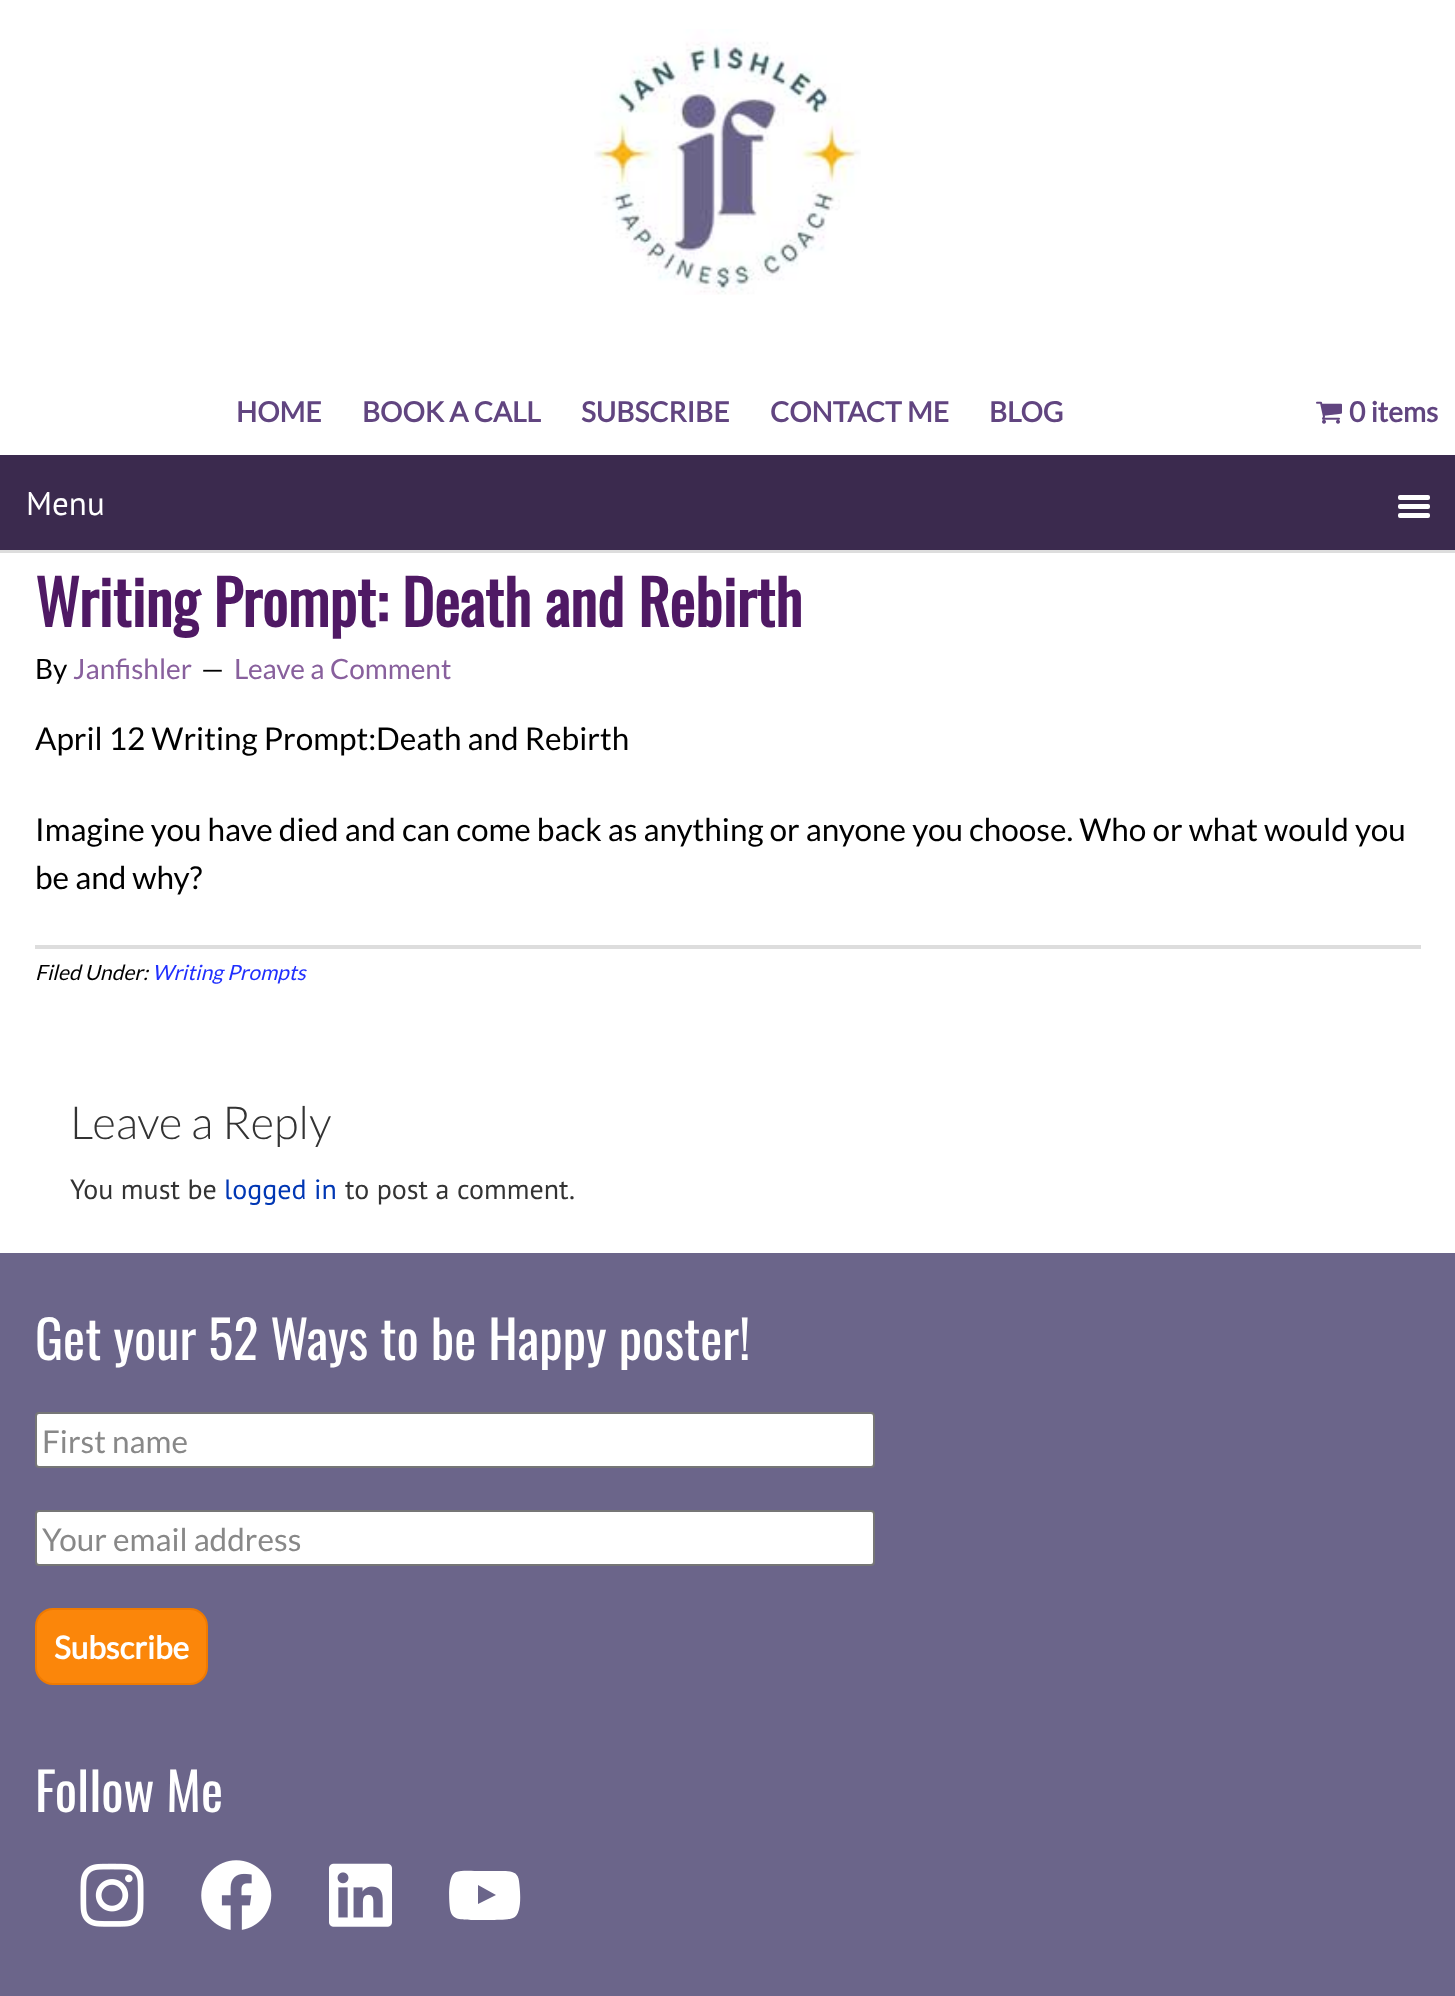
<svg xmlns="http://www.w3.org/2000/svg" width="1455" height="1996">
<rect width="100%" height="100%" fill="#fff"/>
<image x="594" y="29" width="267" height="266" href="media/1.png"/>
<text x="236" y="422" style="font-family:Lato;font-size:28px;font-weight:bold;fill:#614580">HOME</text>
<text x="362" y="422" style="font-family:Lato;font-size:28px;font-weight:bold;fill:#614580">BOOK A CALL</text>
<text x="581" y="422" style="font-family:Lato;font-size:28px;font-weight:bold;fill:#614580">SUBSCRIBE</text>
<text x="770" y="422" style="font-family:Lato;font-size:28px;font-weight:bold;fill:#614580">CONTACT ME</text>
<text x="989" y="422" style="font-family:Lato;font-size:28px;font-weight:bold;fill:#614580">BLOG</text>
<image x="1316" y="401" width="26" height="23" href="media/2.png"/>
<text x="1349" y="422" style="font-family:Lato;font-size:28px;font-weight:bold;fill:#614580">0 items</text>
<rect y="455" width="1455" height="95" fill="#3b2a4e"/>
<rect y="550" width="1455" height="3" fill="#ddd"/>
<text x="26" y="515" style="font-family:PT Sans;font-size:33px;fill:#fff">Menu</text>
<rect x="1398" y="495" width="32" height="5" rx="2" fill="#fff"/>
<rect x="1398" y="504" width="32" height="5" rx="2" fill="#fff"/>
<rect x="1398" y="513" width="32" height="5" rx="2" fill="#fff"/>
<text x="35" y="627" style="font-family:Oswald;font-size:61.25px;font-weight:bold;fill:#4f1964">Writing Prompt: Death and Rebirth</text>
<text x="35" y="679" style="font-family:Lato;font-size:28px;fill:#000">By</text>
<text x="73" y="679" style="font-family:Lato;font-size:28px;fill:#88609d">Janfishler</text>
<text x="201" y="679" style="font-family:Lato;font-size:28px;fill:#000">—</text>
<text x="234" y="679" style="font-family:Lato;font-size:28px;fill:#88609d">Leave a Comment</text>
<text x="35" y="750" style="font-family:Lato;font-size:31.5px;fill:#000">April 12 Writing Prompt:Death and Rebirth</text>
<text x="35" y="841" style="font-family:Lato;font-size:31.5px;fill:#000">Imagine you have died and can come back as anything or anyone you choose. Who or what would you</text>
<text x="35" y="889" style="font-family:Lato;font-size:31.5px;fill:#000">be and why?</text>
<rect x="35" y="945" width="1386" height="4" fill="#ddd"/>
<text x="35" y="980" style="font-family:Lato;font-size:21px;font-style:italic;fill:#000">Filed Under:</text>
<text x="152" y="980" style="font-family:Lato;font-size:21px;font-style:italic;fill:#2130fe">Writing Prompts</text>
<text x="70" y="1139" style="font-family:Lato;font-size:45.5px;font-weight:300;fill:#333">Leave a Reply</text>
<text x="70" y="1199" style="font-family:PT Sans;font-size:28px;fill:#333">You must be</text>
<text x="224" y="1199" style="font-family:PT Sans;font-size:28px;fill:#0037b4">logged in</text>
<text x="345" y="1199" style="font-family:PT Sans;font-size:28px;fill:#333">to post a comment.</text>
<rect y="1253" width="1455" height="743" fill="#6b658a"/>
<text x="35" y="1360" style="font-family:Oswald;font-size:52.5px;fill:#fff">Get your 52 Ways to be Happy poster!</text>
<rect x="36" y="1413" width="838" height="54" rx="3" fill="#fff" stroke="#767676" stroke-width="2"/>
<text x="42" y="1453" style="font-family:Lato;font-size:31.5px;fill:#888">First name</text>
<rect x="36" y="1511" width="838" height="54" rx="3" fill="#fff" stroke="#767676" stroke-width="2"/>
<text x="42" y="1551" style="font-family:Lato;font-size:31.5px;fill:#888">Your email address</text>
<rect x="36" y="1609" width="171" height="75" rx="17" fill="#fb860a" stroke="#ef7a00" stroke-width="2"/>
<text x="54" y="1659" style="font-family:Lato;font-size:31.5px;font-weight:bold;fill:#fff">Subscribe</text>
<text x="35" y="1812" style="font-family:Oswald;font-size:52.5px;fill:#fff">Follow Me</text>
<image x="80" y="1863" width="64" height="64" href="media/3.png"/>
<image x="201" y="1860" width="71" height="70" href="media/4.png"/>
<image x="329" y="1863" width="63" height="64" href="media/5.png"/>
<path d="M519 1881c-1-10-9-10-18-10h-21c-6 0-19-1-24 1c-2 1-3 2-4 4c-4 8-3 25-2 33c2 12 12 10 21 11h19c6 0 18 0 23-2c10-4 7-29 6-37zm-41 23v-19l18 10z" fill="#fff"/>
</svg>
